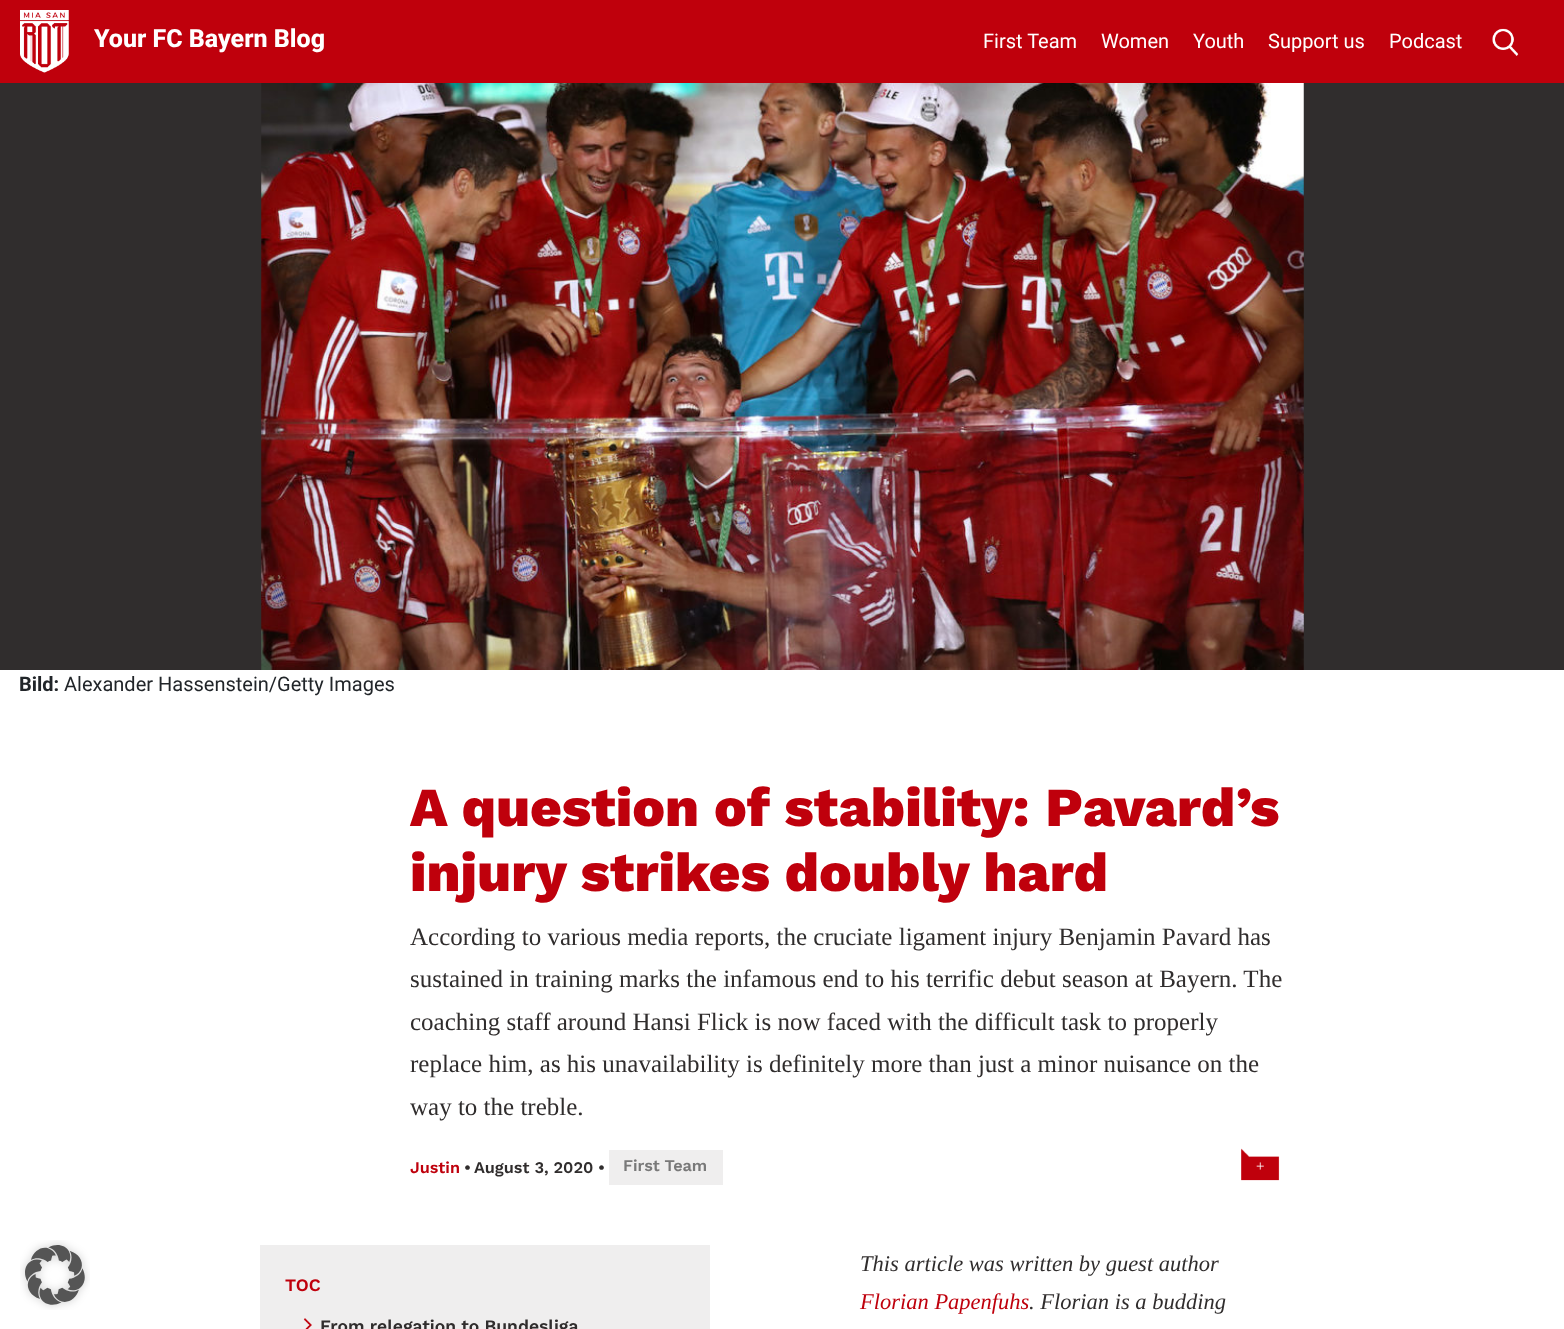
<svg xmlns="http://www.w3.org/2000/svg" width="1564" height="1329">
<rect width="100%" height="100%" fill="#fff"/>
<rect width="1564" height="83" fill="#bf000c"/>
<image x="20" y="10" width="49" height="63" href="media/1.png"/>
<text x="94" y="47" style="font-family:Roboto;font-size:25px;font-weight:800;fill:#fff">Your FC Bayern Blog</text>
<text x="983" y="48" style="font-family:Roboto;font-size:20px;fill:#fff">First Team</text>
<text x="1101" y="48" style="font-family:Roboto;font-size:20px;fill:#fff">Women</text>
<text x="1193" y="48" style="font-family:Roboto;font-size:20px;fill:#fff">Youth</text>
<text x="1268" y="48" style="font-family:Roboto;font-size:20px;fill:#fff">Support us</text>
<text x="1389" y="48" style="font-family:Roboto;font-size:20px;fill:#fff">Podcast</text>
<image x="1492" y="28" width="27" height="28" href="media/2.png"/>
<rect y="83" width="1564" height="587" fill="#302d2d"/>
<image x="261" y="83" width="1043" height="587" href="media/3.png"/>
<text x="19" y="691" style="font-family:Roboto;font-size:20px;font-weight:bold;fill:#212529">Bild:</text>
<text x="64" y="691" style="font-family:Roboto;font-size:20px;fill:#212529">Alexander Hassenstein/Getty Images</text>
<text x="410" y="826" style="font-family:Work Sans;font-size:55px;font-weight:800;fill:#bf000c">A question of stability: Pavard’s</text>
<text x="410" y="891" style="font-family:Work Sans;font-size:55px;font-weight:800;fill:#bf000c">injury strikes doubly hard</text>
<text x="410" y="945" style="font-family:Liberation Serif;font-size:25px;fill:#302d2d">According to various media reports, the cruciate ligament injury Benjamin Pavard has</text>
<text x="410" y="987" style="font-family:Liberation Serif;font-size:25px;fill:#302d2d">sustained in training marks the infamous end to his terrific debut season at Bayern. The</text>
<text x="410" y="1030" style="font-family:Liberation Serif;font-size:25px;fill:#302d2d">coaching staff around Hansi Flick is now faced with the difficult task to properly</text>
<text x="410" y="1072" style="font-family:Liberation Serif;font-size:25px;fill:#302d2d">replace him, as his unavailability is definitely more than just a minor nuisance on the</text>
<text x="410" y="1115" style="font-family:Liberation Serif;font-size:25px;fill:#302d2d">way to the treble.</text>
<text x="410" y="1173" style="font-family:Work Sans;font-size:16.25px;font-weight:600;fill:#bf000c">Justin</text>
<text x="464" y="1173" style="font-family:Work Sans;font-size:16.25px;font-weight:600;fill:#302d2d">•</text>
<text x="474" y="1173" style="font-family:Work Sans;font-size:16.25px;font-weight:600;fill:#302d2d">August 3, 2020</text>
<text x="598" y="1173" style="font-family:Work Sans;font-size:16.25px;font-weight:600;fill:#302d2d">•</text>
<rect x="609" y="1150" width="114" height="35" fill="#efeeee"/>
<text x="623" y="1171" style="font-family:Work Sans;font-size:16.25px;font-weight:600;fill:#797979">First Team</text>
<image x="1241" y="1148" width="39" height="33" href="media/4.png"/>
<text x="1256" y="1171" style="font-family:Liberation Serif;font-size:15px;fill:#fff">+</text>
<rect x="260" y="1245" width="450" height="84" fill="#efeeee"/>
<text x="285" y="1291" style="font-family:Work Sans;font-size:17.5px;font-weight:600;fill:#bf000c">TOC</text>
<image x="303" y="1318" width="9" height="11" href="media/5.png"/>
<text x="320" y="1332" style="font-family:Work Sans;font-size:17.5px;font-weight:600;fill:#302d2d">From relegation to Bundesliga</text>
<text x="860" y="1271" style="font-family:Liberation Serif;font-size:22.5px;font-style:italic;fill:#302d2d">This article was written by guest author</text>
<text x="860" y="1309" style="font-family:Liberation Serif;font-size:22.5px;font-style:italic;fill:#bf000c">Florian Papenfuhs</text>
<text x="1029" y="1309" style="font-family:Liberation Serif;font-size:22.5px;font-style:italic;fill:#302d2d">. Florian is a budding</text>
<image x="20" y="1240" width="70" height="70" href="media/6.png"/>
</svg>
